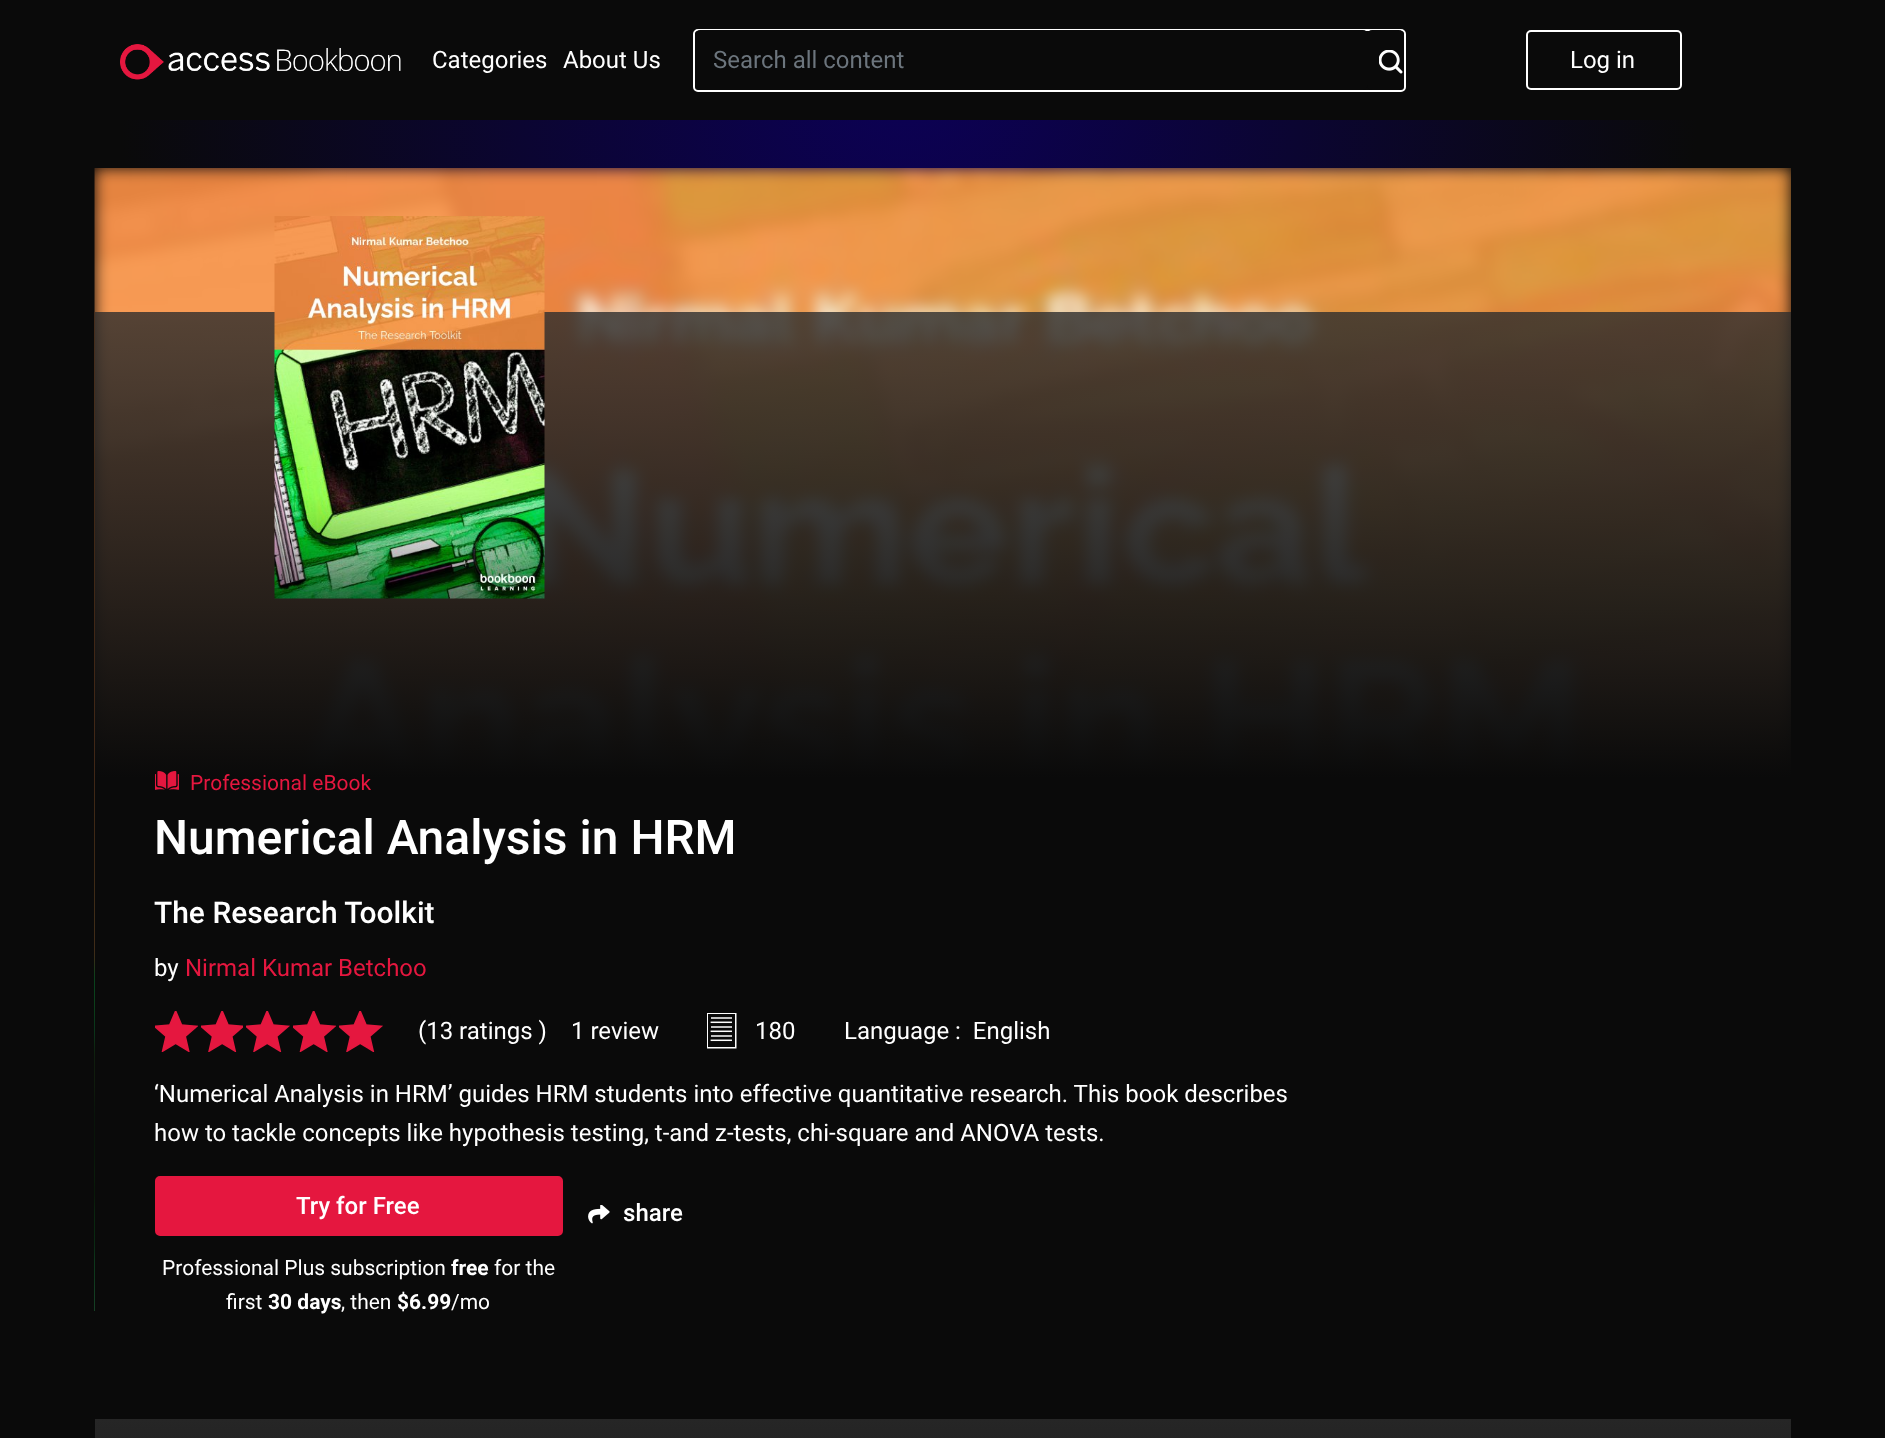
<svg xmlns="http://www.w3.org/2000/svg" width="1885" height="1438">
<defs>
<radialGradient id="g1" gradientUnits="userSpaceOnUse" cx="0" cy="0" r="1" gradientTransform="matrix(881 0 0 1336 909 0)"><stop offset="0" stop-color="#0c0059"/><stop offset="0.9" stop-color="#0a0a0a"/></radialGradient>
<linearGradient id="g2" gradientUnits="userSpaceOnUse" x1="943" y1="312" x2="943" y2="1371"><stop offset="0" stop-color="#2d2d2d" stop-opacity="0.8"/><stop offset="0.44" stop-color="#0a0a0a"/></linearGradient>
<linearGradient id="g3" gradientUnits="userSpaceOnUse" x1="943" y1="1419" x2="943" y2="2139"><stop offset="0" stop-color="#262626"/><stop offset="0.44" stop-color="#0a0a0a"/></linearGradient>
</defs>
<rect width="100%" height="100%" fill="#fff"/>
<rect y="120" width="1885" height="1318" fill="url(#g1)"/>
<rect width="1885" height="120" fill="#0a0a0a"/>
<image x="120" y="44" width="281" height="36" href="media/1.png"/>
<text x="432" y="68" style="font-family:Roboto;font-size:24px;fill:#fff">Categories</text>
<text x="563" y="68" style="font-family:Roboto;font-size:24px;fill:#fff">About Us</text>
<rect x="694" y="30" width="711" height="61" rx="4" fill="none" stroke="#fff" stroke-width="2"/>
<rect x="695" y="30" width="673" height="60" rx="5" fill="#0a0a0a"/>
<text x="713" y="68" style="font-family:Roboto;font-size:24px;fill:#6c757d">Search all content</text>
<rect x="1367" y="30" width="37" height="60" rx="5" fill="#0a0a0a"/>
<image x="1379" y="50" width="24" height="24" href="media/2.png"/>
<rect x="1527" y="31" width="154" height="58" rx="4" fill="none" stroke="#fff" stroke-width="2"/>
<text x="1570" y="68" style="font-family:Roboto;font-size:24px;fill:#fff">Log in</text>
<image x="94" y="168" width="1697" height="1143" href="media/3.png"/>
<rect x="95" y="312" width="1696" height="999" fill="url(#g2)"/>
<image x="274" y="216" width="271" height="383" href="media/4.png"/>
<image x="155" y="771" width="24" height="19" href="media/5.png"/>
<text x="190" y="790" style="font-family:Roboto;font-size:21px;fill:#e5173f">Professional eBook</text>
<text x="154" y="854" style="font-family:Roboto;font-size:48px;font-weight:500;fill:#fff">Numerical Analysis in HRM</text>
<text x="154" y="923" style="font-family:Roboto;font-size:30px;font-weight:500;fill:#fff">The Research Toolkit</text>
<text x="154" y="976" style="font-family:Roboto;font-size:24px;fill:#fff">by</text>
<text x="185" y="976" style="font-family:Roboto;font-size:24px;fill:#e5173f">Nirmal Kumar Betchoo</text>
<image x="155" y="1011" width="43" height="41" href="media/6.png"/>
<image x="201" y="1011" width="42" height="41" href="media/7.png"/>
<image x="246" y="1011" width="44" height="41" href="media/8.png"/>
<image x="293" y="1011" width="43" height="41" href="media/6.png"/>
<image x="339" y="1011" width="44" height="41" href="media/8.png"/>
<text x="418" y="1039" style="font-family:Roboto;font-size:24px;fill:#fff">(13 ratings )</text>
<text x="571" y="1039" style="font-family:Roboto;font-size:24px;fill:#fff">1 review</text>
<image x="707" y="1013" width="30" height="36" href="media/9.png"/>
<text x="755" y="1039" style="font-family:Roboto;font-size:24px;fill:#fff">180</text>
<text x="844" y="1039" style="font-family:Roboto;font-size:24px;fill:#fff" xml:space="preserve">Language :  English</text>
<text x="154" y="1102" style="font-family:Roboto;font-size:24px;fill:#fff">‘Numerical Analysis in HRM’ guides HRM students into effective quantitative research. This book describes</text>
<text x="154" y="1141" style="font-family:Roboto;font-size:24px;fill:#fff">how to tackle concepts like hypothesis testing, t-and z-tests, chi-square and ANOVA tests.</text>
<rect x="156" y="1177" width="406" height="58" rx="4" fill="#e5173f" stroke="#e5173f" stroke-width="2"/>
<text x="296" y="1214" style="font-family:Roboto;font-size:24px;font-weight:500;fill:#fff">Try for Free</text>
<text x="162" y="1275" style="font-family:Roboto;font-size:21px;fill:#fff">Professional Plus subscription</text>
<text x="451" y="1275" style="font-family:Roboto;font-size:21px;font-weight:bold;fill:#fff">free</text>
<text x="494" y="1275" style="font-family:Roboto;font-size:21px;fill:#fff">for the</text>
<text x="226" y="1309" style="font-family:Roboto;font-size:21px;fill:#fff">first</text>
<text x="268" y="1309" style="font-family:Roboto;font-size:21px;font-weight:bold;fill:#fff">30 days</text>
<text x="341" y="1309" style="font-family:Roboto;font-size:21px;fill:#fff">, then</text>
<text x="397" y="1309" style="font-family:Roboto;font-size:21px;font-weight:bold;fill:#fff">$6.99</text>
<text x="451" y="1309" style="font-family:Roboto;font-size:21px;fill:#fff">/mo</text>
<image x="588" y="1205" width="22" height="19" href="media/10.png"/>
<text x="623" y="1221" style="font-family:Roboto;font-size:24px;font-weight:500;fill:#fff">share</text>
<rect x="95" y="1419" width="1696" height="19" fill="url(#g3)"/>
</svg>
